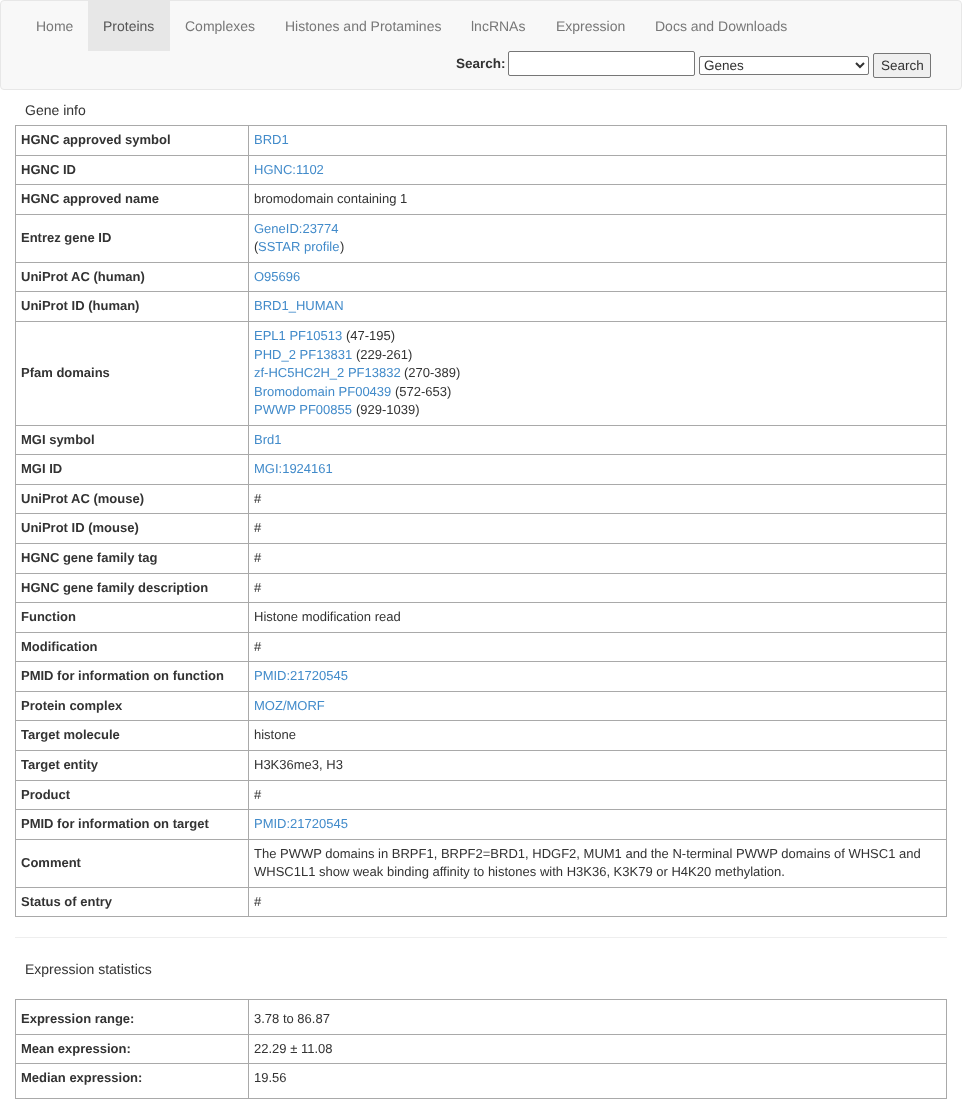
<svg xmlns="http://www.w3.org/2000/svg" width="962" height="1101">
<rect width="100%" height="100%" fill="#fff"/>
<rect x="0.5" y="0.5" width="961" height="89" rx="3.5" fill="#f8f8f8" stroke="#e7e7e7"/>
<text x="36" y="31" style="font-family:Liberation Sans;font-size:14px;fill:#777">Home</text>
<rect x="88" y="1" width="82" height="50" fill="#e7e7e7"/>
<text x="103" y="31" style="font-family:Liberation Sans;font-size:14px;fill:#555">Proteins</text>
<text x="185" y="31" style="font-family:Liberation Sans;font-size:14px;fill:#777">Сomplexes</text>
<text x="285" y="31" style="font-family:Liberation Sans;font-size:14px;fill:#777">Histones and Protamines</text>
<text x="471" y="31" style="font-family:Liberation Sans;font-size:14px;fill:#777">lncRNAs</text>
<text x="556" y="31" style="font-family:Liberation Sans;font-size:14px;fill:#777">Expression</text>
<text x="655" y="31" style="font-family:Liberation Sans;font-size:14px;fill:#777">Docs and Downloads</text>
<text x="456" y="68" style="font-family:Liberation Sans;font-size:13.5px;font-weight:bold;fill:#333">Search:</text>
<rect x="508.5" y="51.5" width="186" height="24" rx="1.5" fill="#fff" stroke="#767676"/>
<rect x="699.5" y="56.5" width="169" height="18" rx="1.5" fill="#fff" stroke="#767676"/>
<path d="M856 63l4 4l4-4" fill="none" stroke="#333" stroke-width="2"/>
<text x="704" y="70" style="font-family:Liberation Sans;font-size:13.5px;fill:#333">Genes</text>
<rect x="873.5" y="53.5" width="57" height="24" rx="1.5" fill="#efefef" stroke="#767676"/>
<text x="881" y="70" style="font-family:Liberation Sans;font-size:13.5px;fill:#333">Search</text>
<text x="25" y="115" style="font-family:Liberation Sans;font-size:14px;fill:#333">Gene info</text>
<rect x="248" y="125" width="699" height="1" fill="#a9a9a9"/>
<rect x="248" y="155" width="699" height="1" fill="#a9a9a9"/>
<rect x="248" y="184" width="699" height="1" fill="#a9a9a9"/>
<rect x="248" y="214" width="699" height="1" fill="#a9a9a9"/>
<rect x="248" y="262" width="699" height="1" fill="#a9a9a9"/>
<rect x="248" y="291" width="699" height="1" fill="#a9a9a9"/>
<rect x="248" y="321" width="699" height="1" fill="#a9a9a9"/>
<rect x="248" y="425" width="699" height="1" fill="#a9a9a9"/>
<rect x="248" y="454" width="699" height="1" fill="#a9a9a9"/>
<rect x="248" y="484" width="699" height="1" fill="#a9a9a9"/>
<rect x="248" y="513" width="699" height="1" fill="#a9a9a9"/>
<rect x="248" y="543" width="699" height="1" fill="#a9a9a9"/>
<rect x="248" y="573" width="699" height="1" fill="#a9a9a9"/>
<rect x="248" y="602" width="699" height="1" fill="#a9a9a9"/>
<rect x="248" y="632" width="699" height="1" fill="#a9a9a9"/>
<rect x="248" y="661" width="699" height="1" fill="#a9a9a9"/>
<rect x="248" y="691" width="699" height="1" fill="#a9a9a9"/>
<rect x="248" y="720" width="699" height="1" fill="#a9a9a9"/>
<rect x="248" y="750" width="699" height="1" fill="#a9a9a9"/>
<rect x="248" y="780" width="699" height="1" fill="#a9a9a9"/>
<rect x="248" y="809" width="699" height="1" fill="#a9a9a9"/>
<rect x="248" y="839" width="699" height="1" fill="#a9a9a9"/>
<rect x="248" y="887" width="699" height="1" fill="#a9a9a9"/>
<rect x="946" y="887" width="1" height="30" fill="#a9a9a9"/>
<rect x="248" y="916" width="699" height="1" fill="#a9a9a9"/>
<rect x="248" y="887" width="1" height="30" fill="#a9a9a9"/>
<rect x="15" y="887" width="234" height="1" fill="#a9a9a9"/>
<rect x="248" y="839" width="1" height="49" fill="#a9a9a9"/>
<rect x="15" y="839" width="234" height="1" fill="#a9a9a9"/>
<rect x="248" y="809" width="1" height="31" fill="#a9a9a9"/>
<rect x="15" y="809" width="234" height="1" fill="#a9a9a9"/>
<rect x="248" y="780" width="1" height="30" fill="#a9a9a9"/>
<rect x="15" y="780" width="234" height="1" fill="#a9a9a9"/>
<rect x="248" y="750" width="1" height="31" fill="#a9a9a9"/>
<rect x="15" y="750" width="234" height="1" fill="#a9a9a9"/>
<rect x="248" y="720" width="1" height="31" fill="#a9a9a9"/>
<rect x="15" y="720" width="234" height="1" fill="#a9a9a9"/>
<rect x="248" y="691" width="1" height="30" fill="#a9a9a9"/>
<rect x="15" y="691" width="234" height="1" fill="#a9a9a9"/>
<rect x="248" y="661" width="1" height="31" fill="#a9a9a9"/>
<rect x="15" y="661" width="234" height="1" fill="#a9a9a9"/>
<rect x="248" y="632" width="1" height="30" fill="#a9a9a9"/>
<rect x="15" y="632" width="234" height="1" fill="#a9a9a9"/>
<rect x="248" y="602" width="1" height="31" fill="#a9a9a9"/>
<rect x="15" y="602" width="234" height="1" fill="#a9a9a9"/>
<rect x="248" y="573" width="1" height="30" fill="#a9a9a9"/>
<rect x="15" y="573" width="234" height="1" fill="#a9a9a9"/>
<rect x="248" y="543" width="1" height="31" fill="#a9a9a9"/>
<rect x="15" y="543" width="234" height="1" fill="#a9a9a9"/>
<rect x="248" y="513" width="1" height="31" fill="#a9a9a9"/>
<rect x="15" y="513" width="234" height="1" fill="#a9a9a9"/>
<rect x="248" y="484" width="1" height="30" fill="#a9a9a9"/>
<rect x="15" y="484" width="234" height="1" fill="#a9a9a9"/>
<rect x="248" y="454" width="1" height="31" fill="#a9a9a9"/>
<rect x="15" y="454" width="234" height="1" fill="#a9a9a9"/>
<rect x="248" y="425" width="1" height="30" fill="#a9a9a9"/>
<rect x="15" y="425" width="234" height="1" fill="#a9a9a9"/>
<rect x="248" y="321" width="1" height="105" fill="#a9a9a9"/>
<rect x="15" y="321" width="234" height="1" fill="#a9a9a9"/>
<rect x="248" y="291" width="1" height="31" fill="#a9a9a9"/>
<rect x="15" y="291" width="234" height="1" fill="#a9a9a9"/>
<rect x="248" y="262" width="1" height="30" fill="#a9a9a9"/>
<rect x="15" y="262" width="234" height="1" fill="#a9a9a9"/>
<rect x="248" y="214" width="1" height="49" fill="#a9a9a9"/>
<rect x="15" y="214" width="234" height="1" fill="#a9a9a9"/>
<rect x="248" y="184" width="1" height="31" fill="#a9a9a9"/>
<rect x="15" y="184" width="234" height="1" fill="#a9a9a9"/>
<rect x="248" y="155" width="1" height="30" fill="#a9a9a9"/>
<rect x="15" y="155" width="234" height="1" fill="#a9a9a9"/>
<rect x="248" y="125" width="1" height="31" fill="#a9a9a9"/>
<rect x="15" y="125" width="234" height="1" fill="#a9a9a9"/>
<rect x="15" y="916" width="234" height="1" fill="#a9a9a9"/>
<rect x="15" y="887" width="1" height="30" fill="#a9a9a9"/>
<rect x="15" y="839" width="1" height="49" fill="#a9a9a9"/>
<rect x="15" y="809" width="1" height="31" fill="#a9a9a9"/>
<rect x="15" y="780" width="1" height="30" fill="#a9a9a9"/>
<rect x="15" y="750" width="1" height="31" fill="#a9a9a9"/>
<rect x="15" y="720" width="1" height="31" fill="#a9a9a9"/>
<rect x="15" y="691" width="1" height="30" fill="#a9a9a9"/>
<rect x="15" y="661" width="1" height="31" fill="#a9a9a9"/>
<rect x="15" y="632" width="1" height="30" fill="#a9a9a9"/>
<rect x="15" y="602" width="1" height="31" fill="#a9a9a9"/>
<rect x="15" y="573" width="1" height="30" fill="#a9a9a9"/>
<rect x="15" y="543" width="1" height="31" fill="#a9a9a9"/>
<rect x="15" y="513" width="1" height="31" fill="#a9a9a9"/>
<rect x="15" y="484" width="1" height="30" fill="#a9a9a9"/>
<rect x="15" y="454" width="1" height="31" fill="#a9a9a9"/>
<rect x="15" y="425" width="1" height="30" fill="#a9a9a9"/>
<rect x="15" y="321" width="1" height="105" fill="#a9a9a9"/>
<rect x="15" y="291" width="1" height="31" fill="#a9a9a9"/>
<rect x="15" y="262" width="1" height="30" fill="#a9a9a9"/>
<rect x="15" y="214" width="1" height="49" fill="#a9a9a9"/>
<rect x="15" y="184" width="1" height="31" fill="#a9a9a9"/>
<rect x="15" y="155" width="1" height="30" fill="#a9a9a9"/>
<rect x="15" y="125" width="1" height="31" fill="#a9a9a9"/>
<text x="21" y="144" style="font-family:Liberation Sans;font-size:13px;font-weight:bold;fill:#333">HGNC approved symbol</text>
<rect x="946" y="839" width="1" height="49" fill="#a9a9a9"/>
<rect x="946" y="809" width="1" height="31" fill="#a9a9a9"/>
<rect x="946" y="780" width="1" height="30" fill="#a9a9a9"/>
<rect x="946" y="750" width="1" height="31" fill="#a9a9a9"/>
<rect x="946" y="720" width="1" height="31" fill="#a9a9a9"/>
<rect x="946" y="691" width="1" height="30" fill="#a9a9a9"/>
<rect x="946" y="661" width="1" height="31" fill="#a9a9a9"/>
<rect x="946" y="632" width="1" height="30" fill="#a9a9a9"/>
<rect x="946" y="602" width="1" height="31" fill="#a9a9a9"/>
<rect x="946" y="573" width="1" height="30" fill="#a9a9a9"/>
<rect x="946" y="543" width="1" height="31" fill="#a9a9a9"/>
<rect x="946" y="513" width="1" height="31" fill="#a9a9a9"/>
<rect x="946" y="484" width="1" height="30" fill="#a9a9a9"/>
<rect x="946" y="454" width="1" height="31" fill="#a9a9a9"/>
<rect x="946" y="425" width="1" height="30" fill="#a9a9a9"/>
<rect x="946" y="321" width="1" height="105" fill="#a9a9a9"/>
<rect x="946" y="291" width="1" height="31" fill="#a9a9a9"/>
<rect x="946" y="262" width="1" height="30" fill="#a9a9a9"/>
<rect x="946" y="214" width="1" height="49" fill="#a9a9a9"/>
<rect x="946" y="184" width="1" height="31" fill="#a9a9a9"/>
<rect x="946" y="155" width="1" height="30" fill="#a9a9a9"/>
<rect x="946" y="125" width="1" height="31" fill="#a9a9a9"/>
<text x="254" y="144" style="font-family:Liberation Sans;font-size:13px;fill:#428bca">BRD1</text>
<text x="21" y="174" style="font-family:Liberation Sans;font-size:13px;font-weight:bold;fill:#333">HGNC ID</text>
<text x="254" y="174" style="font-family:Liberation Sans;font-size:13px;fill:#428bca">HGNC:1102</text>
<text x="21" y="203" style="font-family:Liberation Sans;font-size:13px;font-weight:bold;fill:#333">HGNC approved name</text>
<text x="254" y="203" style="font-family:Liberation Sans;font-size:13px;fill:#333">bromodomain containing 1</text>
<text x="21" y="242" style="font-family:Liberation Sans;font-size:13px;font-weight:bold;fill:#333">Entrez gene ID</text>
<text x="254" y="233" style="font-family:Liberation Sans;font-size:13px;fill:#428bca">GeneID:23774</text>
<text x="254" y="251" style="font-family:Liberation Sans;font-size:13px;fill:#333">(</text>
<text x="258" y="251" style="font-family:Liberation Sans;font-size:13px;fill:#428bca">SSTAR profile</text>
<text x="340" y="251" style="font-family:Liberation Sans;font-size:13px;fill:#333">)</text>
<text x="21" y="281" style="font-family:Liberation Sans;font-size:13px;font-weight:bold;fill:#333">UniProt AC (human)</text>
<text x="254" y="281" style="font-family:Liberation Sans;font-size:13px;fill:#428bca">O95696</text>
<text x="21" y="310" style="font-family:Liberation Sans;font-size:13px;font-weight:bold;fill:#333">UniProt ID (human)</text>
<text x="254" y="310" style="font-family:Liberation Sans;font-size:13px;fill:#428bca">BRD1_HUMAN</text>
<text x="21" y="377" style="font-family:Liberation Sans;font-size:13px;font-weight:bold;fill:#333">Pfam domains</text>
<text x="254" y="340" style="font-family:Liberation Sans;font-size:13px;fill:#428bca">EPL1 PF10513</text>
<text x="346" y="340" style="font-family:Liberation Sans;font-size:13px;fill:#333">(47-195)</text>
<text x="254" y="359" style="font-family:Liberation Sans;font-size:13px;fill:#428bca">PHD_2 PF13831</text>
<text x="356" y="359" style="font-family:Liberation Sans;font-size:13px;fill:#333">(229-261)</text>
<text x="254" y="377" style="font-family:Liberation Sans;font-size:13px;fill:#428bca">zf-HC5HC2H_2 PF13832</text>
<text x="404" y="377" style="font-family:Liberation Sans;font-size:13px;fill:#333">(270-389)</text>
<text x="254" y="396" style="font-family:Liberation Sans;font-size:13px;fill:#428bca">Bromodomain PF00439</text>
<text x="395" y="396" style="font-family:Liberation Sans;font-size:13px;fill:#333">(572-653)</text>
<text x="254" y="414" style="font-family:Liberation Sans;font-size:13px;fill:#428bca">PWWP PF00855</text>
<text x="356" y="414" style="font-family:Liberation Sans;font-size:13px;fill:#333">(929-1039)</text>
<text x="21" y="444" style="font-family:Liberation Sans;font-size:13px;font-weight:bold;fill:#333">MGI symbol</text>
<text x="254" y="444" style="font-family:Liberation Sans;font-size:13px;fill:#428bca">Brd1</text>
<text x="21" y="473" style="font-family:Liberation Sans;font-size:13px;font-weight:bold;fill:#333">MGI ID</text>
<text x="254" y="473" style="font-family:Liberation Sans;font-size:13px;fill:#428bca">MGI:1924161</text>
<text x="21" y="503" style="font-family:Liberation Sans;font-size:13px;font-weight:bold;fill:#333">UniProt AC (mouse)</text>
<text x="254" y="503" style="font-family:Liberation Sans;font-size:13px;fill:#333">#</text>
<text x="21" y="532" style="font-family:Liberation Sans;font-size:13px;font-weight:bold;fill:#333">UniProt ID (mouse)</text>
<text x="254" y="532" style="font-family:Liberation Sans;font-size:13px;fill:#333">#</text>
<text x="21" y="562" style="font-family:Liberation Sans;font-size:13px;font-weight:bold;fill:#333">HGNC gene family tag</text>
<text x="254" y="562" style="font-family:Liberation Sans;font-size:13px;fill:#333">#</text>
<text x="21" y="592" style="font-family:Liberation Sans;font-size:13px;font-weight:bold;fill:#333">HGNC gene family description</text>
<text x="254" y="592" style="font-family:Liberation Sans;font-size:13px;fill:#333">#</text>
<text x="21" y="621" style="font-family:Liberation Sans;font-size:13px;font-weight:bold;fill:#333">Function</text>
<text x="254" y="621" style="font-family:Liberation Sans;font-size:13px;fill:#333">Histone modification read</text>
<text x="21" y="651" style="font-family:Liberation Sans;font-size:13px;font-weight:bold;fill:#333">Modification</text>
<text x="254" y="651" style="font-family:Liberation Sans;font-size:13px;fill:#333">#</text>
<text x="21" y="680" style="font-family:Liberation Sans;font-size:13px;font-weight:bold;fill:#333">PMID for information on function</text>
<text x="254" y="680" style="font-family:Liberation Sans;font-size:13px;fill:#428bca">PMID:21720545</text>
<text x="21" y="710" style="font-family:Liberation Sans;font-size:13px;font-weight:bold;fill:#333">Protein complex</text>
<text x="254" y="710" style="font-family:Liberation Sans;font-size:13px;fill:#428bca">MOZ/MORF</text>
<text x="21" y="739" style="font-family:Liberation Sans;font-size:13px;font-weight:bold;fill:#333">Target molecule</text>
<text x="254" y="739" style="font-family:Liberation Sans;font-size:13px;fill:#333">histone</text>
<text x="21" y="769" style="font-family:Liberation Sans;font-size:13px;font-weight:bold;fill:#333">Target entity</text>
<text x="254" y="769" style="font-family:Liberation Sans;font-size:13px;fill:#333">H3K36me3, H3</text>
<text x="21" y="799" style="font-family:Liberation Sans;font-size:13px;font-weight:bold;fill:#333">Product</text>
<text x="254" y="799" style="font-family:Liberation Sans;font-size:13px;fill:#333">#</text>
<text x="21" y="828" style="font-family:Liberation Sans;font-size:13px;font-weight:bold;fill:#333">PMID for information on target</text>
<text x="254" y="828" style="font-family:Liberation Sans;font-size:13px;fill:#428bca">PMID:21720545</text>
<text x="21" y="867" style="font-family:Liberation Sans;font-size:13px;font-weight:bold;fill:#333">Comment</text>
<text x="254" y="858" style="font-family:Liberation Sans;font-size:13px;fill:#333">The PWWP domains in BRPF1, BRPF2=BRD1, HDGF2, MUM1 and the N-terminal PWWP domains of WHSC1 and</text>
<text x="254" y="876" style="font-family:Liberation Sans;font-size:13px;fill:#333">WHSC1L1 show weak binding affinity to histones with H3K36, K3K79 or H4K20 methylation.</text>
<text x="21" y="906" style="font-family:Liberation Sans;font-size:13px;font-weight:bold;fill:#333">Status of entry</text>
<text x="254" y="906" style="font-family:Liberation Sans;font-size:13px;fill:#333">#</text>
<rect x="15" y="937" width="932" height="1" fill="#eee"/>
<text x="25" y="974" style="font-family:Liberation Sans;font-size:14px;fill:#333">Expression statistics</text>
<rect x="15" y="999" width="932" height="1" fill="#a9a9a9"/>
<rect x="15" y="1098" width="932" height="1" fill="#a9a9a9"/>
<text x="21" y="1023" style="font-family:Liberation Sans;font-size:13px;font-weight:bold;fill:#333">Expression range:</text>
<rect x="248" y="1034" width="699" height="1" fill="#a9a9a9"/>
<rect x="248" y="1063" width="699" height="1" fill="#a9a9a9"/>
<rect x="248" y="1063" width="1" height="36" fill="#a9a9a9"/>
<rect x="15" y="1063" width="234" height="1" fill="#a9a9a9"/>
<rect x="248" y="1034" width="1" height="30" fill="#a9a9a9"/>
<rect x="15" y="1034" width="234" height="1" fill="#a9a9a9"/>
<rect x="248" y="999" width="1" height="36" fill="#a9a9a9"/>
<text x="254" y="1023" style="font-family:Liberation Sans;font-size:13px;fill:#333">3.78 to 86.87</text>
<rect x="15" y="1063" width="1" height="36" fill="#a9a9a9"/>
<rect x="15" y="999" width="1" height="65" fill="#a9a9a9"/>
<text x="21" y="1053" style="font-family:Liberation Sans;font-size:13px;font-weight:bold;fill:#333">Mean expression:</text>
<rect x="946" y="1063" width="1" height="36" fill="#a9a9a9"/>
<rect x="946" y="999" width="1" height="65" fill="#a9a9a9"/>
<text x="254" y="1053" style="font-family:Liberation Sans;font-size:13px;fill:#333">22.29 ± 11.08</text>
<text x="21" y="1082" style="font-family:Liberation Sans;font-size:13px;font-weight:bold;fill:#333">Median expression:</text>
<text x="254" y="1082" style="font-family:Liberation Sans;font-size:13px;fill:#333">19.56</text>
</svg>
